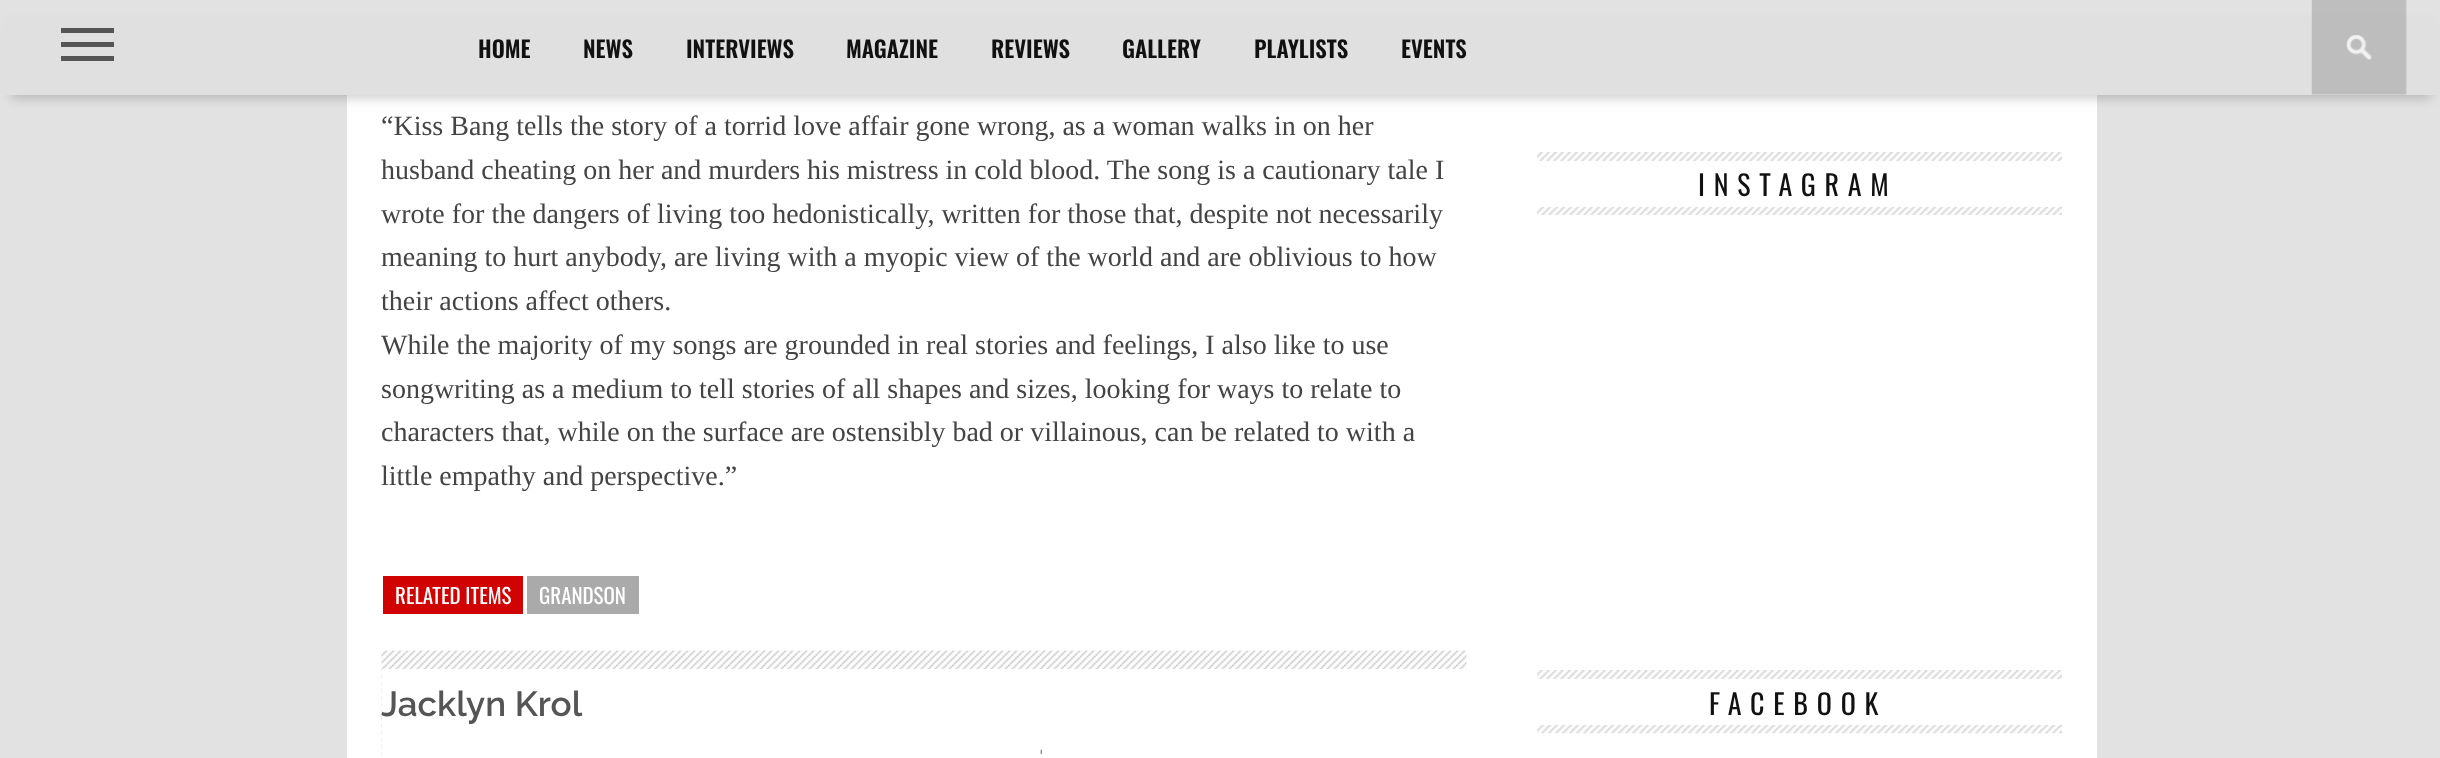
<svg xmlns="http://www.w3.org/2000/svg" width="2440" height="758">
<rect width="100%" height="100%" fill="#e2e2e2"/>
<rect x="347" y="95" width="1750" height="663" fill="#fff"/>
<rect x="11" y="25" width="2420" height="73" fill="#00000033" filter="blur(6px)"/>
<rect x="3" y="17" width="2436" height="78" fill="#e0e0e0"/>
<rect x="61" y="28" width="53" height="5" fill="#555"/>
<rect x="61" y="42" width="53" height="5" fill="#555"/>
<rect x="61" y="56" width="53" height="5" fill="#555"/>
<text x="478" y="58" style="font-family:Oswald;font-size:22.75px;font-weight:600;fill:#111">HOME</text>
<text x="583" y="58" style="font-family:Oswald;font-size:22.75px;font-weight:600;fill:#111">NEWS</text>
<text x="686" y="58" style="font-family:Oswald;font-size:22.75px;font-weight:600;fill:#111">INTERVIEWS</text>
<text x="846" y="58" style="font-family:Oswald;font-size:22.75px;font-weight:600;fill:#111">MAGAZINE</text>
<text x="991" y="58" style="font-family:Oswald;font-size:22.75px;font-weight:600;fill:#111">REVIEWS</text>
<text x="1122" y="58" style="font-family:Oswald;font-size:22.75px;font-weight:600;fill:#111">GALLERY</text>
<text x="1254" y="58" style="font-family:Oswald;font-size:22.75px;font-weight:600;fill:#111">PLAYLISTS</text>
<text x="1401" y="58" style="font-family:Oswald;font-size:22.75px;font-weight:600;fill:#111">EVENTS</text>
<image x="2311" y="0" width="96" height="95" href="media/1.png"/>
<image x="2346" y="35" width="26" height="25" href="media/2.png"/>
<text x="381" y="135" style="font-family:Liberation Serif;font-size:28px;fill:#444">“Kiss Bang tells the story of a torrid love affair gone wrong, as a woman walks in on her</text>
<text x="381" y="179" style="font-family:Liberation Serif;font-size:28px;fill:#444">husband cheating on her and murders his mistress in cold blood. The song is a cautionary tale I</text>
<text x="381" y="223" style="font-family:Liberation Serif;font-size:28px;fill:#444">wrote for the dangers of living too hedonistically, written for those that, despite not necessarily</text>
<text x="381" y="266" style="font-family:Liberation Serif;font-size:28px;fill:#444">meaning to hurt anybody, are living with a myopic view of the world and are oblivious to how</text>
<text x="381" y="310" style="font-family:Liberation Serif;font-size:28px;fill:#444">their actions affect others.</text>
<text x="381" y="354" style="font-family:Liberation Serif;font-size:28px;fill:#444">While the majority of my songs are grounded in real stories and feelings, I also like to use</text>
<text x="381" y="398" style="font-family:Liberation Serif;font-size:28px;fill:#444">songwriting as a medium to tell stories of all shapes and sizes, looking for ways to relate to</text>
<text x="381" y="441" style="font-family:Liberation Serif;font-size:28px;fill:#444">characters that, while on the surface are ostensibly bad or villainous, can be related to with a</text>
<text x="381" y="485" style="font-family:Liberation Serif;font-size:28px;fill:#444">little empathy and perspective.”</text>
<rect x="383" y="576" width="140" height="38" fill="#d10202"/>
<text x="395" y="604" style="font-family:Oswald;font-size:21px;fill:#fff">RELATED ITEMS</text>
<rect x="527" y="576" width="112" height="38" fill="#aaa"/>
<text x="539" y="604" style="font-family:Oswald;font-size:21px;fill:#fff">GRANDSON</text>
<image x="381" y="650" width="1086" height="106" href="media/3.png"/>
<rect x="382" y="669" width="1085" height="87" fill="#fff"/>
<text x="381" y="716" style="font-family:Raleway;font-size:35px;font-weight:600;fill:#555">Jacklyn Krol</text>
<text x="1039" y="767" style="font-family:Raleway;font-size:24px;font-weight:300;fill:#777">'</text>
<image x="1537" y="152" width="525" height="63" href="media/4.png"/>
<rect x="1537" y="161" width="525" height="46" fill="#fff"/>
<text x="1698" y="196" style="font-family:Oswald;font-size:28px;letter-spacing:8.75px;fill:#111">INSTAGRAM</text>
<image x="1537" y="670" width="525" height="64" href="media/5.png"/>
<rect x="1537" y="679" width="525" height="46" fill="#fff"/>
<text x="1709" y="715" style="font-family:Oswald;font-size:28px;letter-spacing:8.75px;fill:#111">FACEBOOK</text>
</svg>
